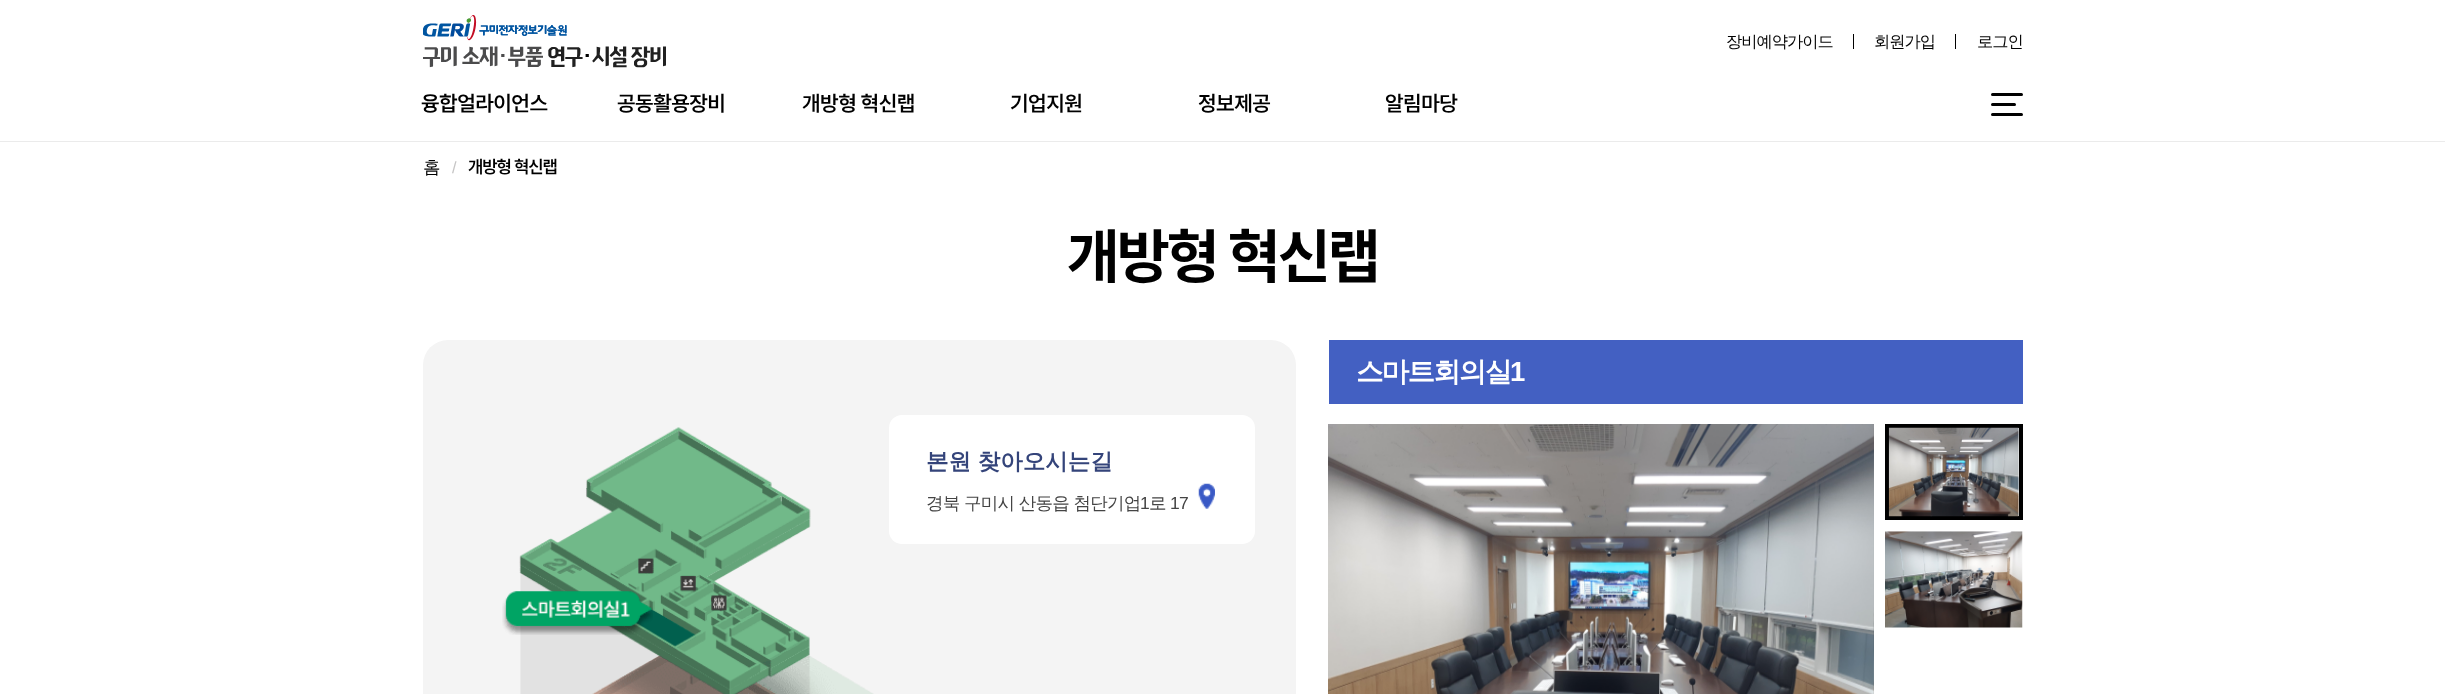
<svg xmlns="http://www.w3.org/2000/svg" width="2445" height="694">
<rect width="100%" height="100%" fill="#fff"/>
<rect y="141" width="2445" height="1" fill="#ebebeb"/>
<image x="423" y="15" width="243" height="53" href="media/1.png"/>
<text x="1726" y="47" style="font-family:WenQuanYi Zen Hei;font-size:16.25px;font-weight:500;letter-spacing:-1px;fill:#000">장비예약가이드</text>
<rect x="1853" y="34" width="1" height="15" fill="#000"/>
<text x="1874" y="47" style="font-family:WenQuanYi Zen Hei;font-size:16.25px;font-weight:500;letter-spacing:-1px;fill:#000">회원가입</text>
<rect x="1955" y="34" width="1" height="15" fill="#000"/>
<text x="1977" y="47" style="font-family:WenQuanYi Zen Hei;font-size:16.25px;font-weight:500;letter-spacing:-1px;fill:#000">로그인</text>
<text x="421" y="111" style="font-family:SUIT;font-size:21.25px;font-weight:600;letter-spacing:-0.5px;fill:#000">융합얼라이언스</text>
<text x="617" y="111" style="font-family:SUIT;font-size:21.25px;font-weight:600;letter-spacing:-0.5px;fill:#000">공동활용장비</text>
<text x="802" y="111" style="font-family:SUIT;font-size:21.25px;font-weight:600;letter-spacing:-0.5px;fill:#000">개방형 혁신랩</text>
<text x="1010" y="111" style="font-family:SUIT;font-size:21.25px;font-weight:600;letter-spacing:-0.5px;fill:#000">기업지원</text>
<text x="1198" y="111" style="font-family:SUIT;font-size:21.25px;font-weight:600;letter-spacing:-0.5px;fill:#000">정보제공</text>
<text x="1385" y="111" style="font-family:SUIT;font-size:21.25px;font-weight:600;letter-spacing:-0.5px;fill:#000">알림마당</text>
<rect x="1991" y="93" width="32" height="3" rx="1.5" fill="#000"/>
<rect x="1991" y="103" width="25" height="3" rx="1.5" fill="#000"/>
<rect x="1991" y="113" width="32" height="3" rx="1.5" fill="#000"/>
<text x="423" y="173" style="font-family:WenQuanYi Zen Hei;font-size:17.5px;font-weight:500;letter-spacing:-1px;fill:#000">홈</text>
<text x="452" y="173" style="font-family:Liberation Sans;font-size:16.25px;letter-spacing:-1px;fill:#c5c4c4">/</text>
<text x="468" y="173" style="font-family:SUIT;font-size:17.5px;font-weight:600;letter-spacing:-1px;fill:#000">개방형 혁신랩</text>
<text x="1067" y="278" style="font-family:SUIT;font-size:60px;font-weight:bold;letter-spacing:-2.5px;fill:#000">개방형 혁신랩</text>
<rect x="423" y="340" width="873" height="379" rx="25" fill="#f4f4f4"/>
<image x="519" y="427" width="355" height="267" href="media/2.png"/>
<image x="502" y="591" width="151" height="44" href="media/3.png"/>
<rect x="1329" y="340" width="694" height="64" fill="#4360c2"/>
<text x="1356" y="381" style="font-family:WenQuanYi Zen Hei;font-size:27.5px;font-weight:bold;letter-spacing:-1.75px;fill:#fff">스마트회의실</text>
<text x="1510" y="381" style="font-family:Liberation Sans;font-size:27.5px;font-weight:bold;letter-spacing:-1.75px;fill:#fff">1</text>
<image x="1328" y="424" width="546" height="270" href="media/4.png"/>
<image x="1873" y="428" width="1" height="266" href="media/5.png"/>
<rect x="1887" y="426" width="134" height="92" fill="none" stroke="#000" stroke-width="4"/>
<image x="1888" y="427" width="131" height="90" href="media/6.png"/>
<image x="1885" y="531" width="138" height="97" href="media/7.png"/>
<rect x="889" y="415" width="366" height="129" rx="13" fill="#fff"/>
<text x="926" y="469" style="font-family:WenQuanYi Zen Hei;font-size:22.5px;font-weight:bold;fill:#34447a">본원 찾아오시는길</text>
<text x="926" y="509" style="font-family:WenQuanYi Zen Hei;font-size:17.5px;font-weight:500;letter-spacing:-0.75px;fill:#444">경북 구미시 산동읍 첨단기업</text>
<text x="1140" y="509" style="font-family:Liberation Sans;font-size:17.5px;letter-spacing:-0.75px;fill:#444">1</text>
<text x="1149" y="509" style="font-family:WenQuanYi Zen Hei;font-size:17.5px;font-weight:500;letter-spacing:-0.75px;fill:#444">로</text>
<text x="1170" y="509" style="font-family:Liberation Sans;font-size:17.5px;letter-spacing:-0.75px;fill:#444">17</text>
<image x="1198" y="483" width="17" height="26" href="media/8.png"/>
</svg>
